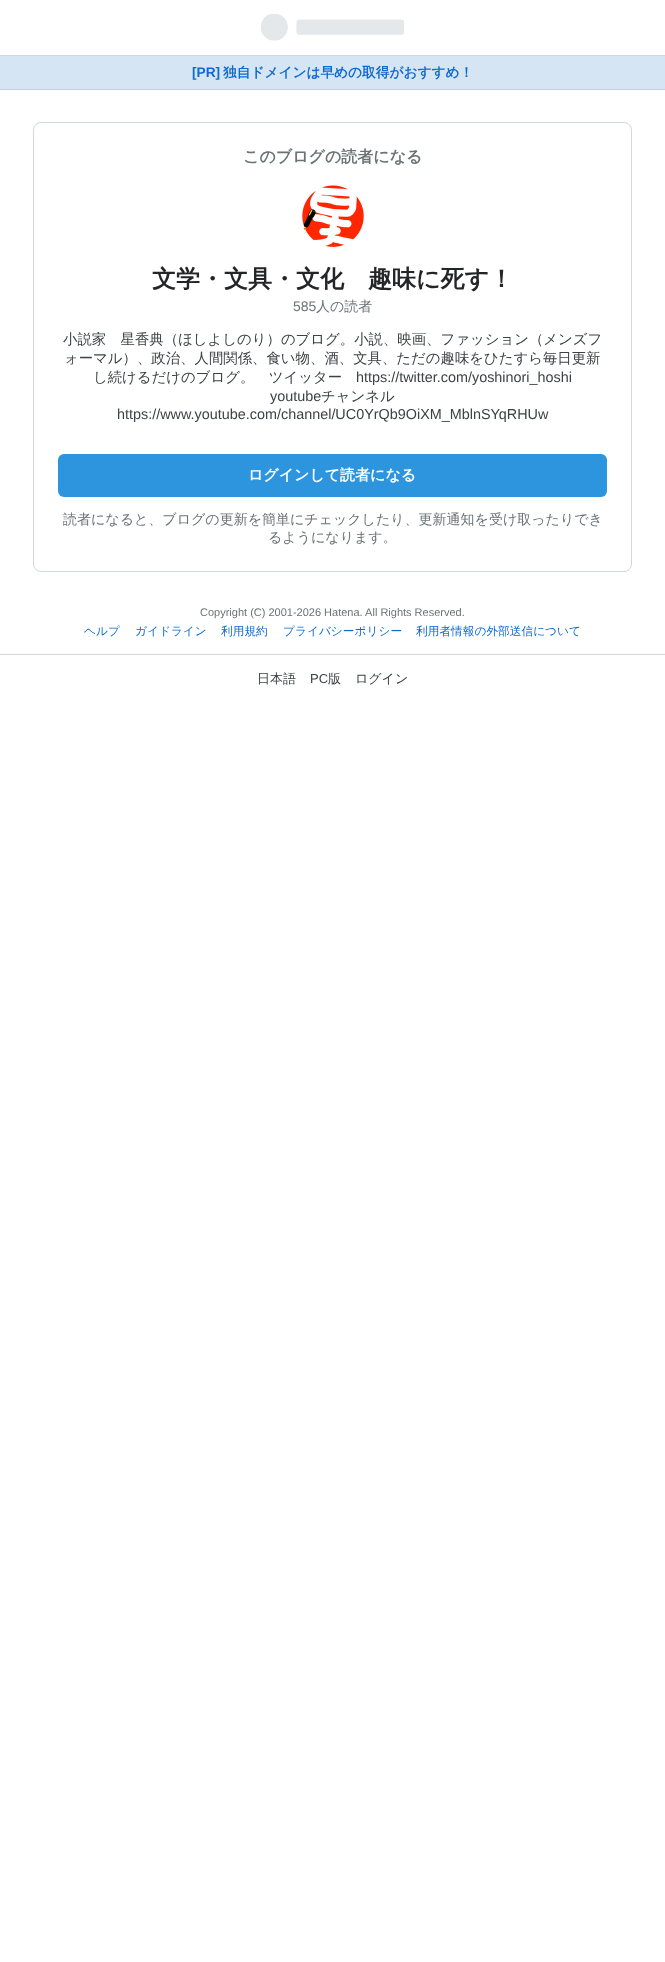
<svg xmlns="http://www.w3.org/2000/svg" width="665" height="1962">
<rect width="100%" height="100%" fill="#fff"/>
<rect y="55" width="665" height="1" fill="#d2d8dd"/>
<image x="261" y="14" width="143" height="27" href="media/1.png"/>
<rect y="56" width="665" height="33" fill="#d6e5f3"/>
<rect y="89" width="665" height="1" fill="#bbcee3"/>
<text x="192" y="77" style="font-family:Liberation Sans;font-size:13.7px;font-weight:bold;fill:#0e6ace">[PR]</text>
<text x="223" y="77" style="font-family:WenQuanYi Zen Hei;font-size:13.7px;font-weight:bold;fill:#0e6ace">独自ドメインは早めの取得がおすすめ！</text>
<rect x="33.5" y="122.5" width="598" height="449" rx="7.5" fill="none" stroke="#d2d8dd"/>
<text x="243" y="162" style="font-family:WenQuanYi Zen Hei;font-size:16px;font-weight:bold;fill:#6b7377">このブログの読者になる</text>
<image x="302" y="185" width="62" height="62" href="media/2.png"/>
<text x="152" y="287" style="font-family:WenQuanYi Zen Hei;font-size:24px;font-weight:bold;fill:#242527">文学・文具・文化　趣味に死す！</text>
<text x="293" y="311" style="font-family:Liberation Sans;font-size:14px;fill:#6b7377">585</text>
<text x="316" y="311" style="font-family:WenQuanYi Zen Hei;font-size:14px;font-weight:500;fill:#6b7377">人の読者</text>
<text x="63" y="344" style="font-family:WenQuanYi Zen Hei;font-size:14.4px;font-weight:500;fill:#3d4245">小説家　星香典（ほしよしのり）のブログ。小説、映画、ファッション（メンズフ</text>
<text x="64" y="363" style="font-family:WenQuanYi Zen Hei;font-size:14.4px;font-weight:500;fill:#3d4245">ォーマル）、政治、人間関係、食い物、酒、文具、ただの趣味をひたすら毎日更新</text>
<text x="93" y="382" style="font-family:WenQuanYi Zen Hei;font-size:14.4px;font-weight:500;fill:#3d4245">し続けるだけのブログ。　ツイッター</text>
<text x="356" y="382" style="font-family:Liberation Sans;font-size:14.4px;fill:#3d4245">https://twitter.com/yoshinori_hoshi</text>
<text x="270" y="401" style="font-family:Liberation Sans;font-size:14.4px;fill:#3d4245">youtube</text>
<text x="321" y="401" style="font-family:WenQuanYi Zen Hei;font-size:14.4px;font-weight:500;fill:#3d4245">チャンネル</text>
<text x="117" y="419" style="font-family:Liberation Sans;font-size:14.4px;fill:#3d4245">https://www.youtube.com/channel/UC0YrQb9OiXM_MblnSYqRHUw</text>
<rect x="58" y="454" width="549" height="43" rx="6" fill="#2d95de"/>
<text x="248" y="480" style="font-family:WenQuanYi Zen Hei;font-size:15px;font-weight:bold;fill:#fff">ログインして読者になる</text>
<text x="63" y="524" style="font-family:WenQuanYi Zen Hei;font-size:14px;font-weight:500;fill:#6b7377">読者になると、ブログの更新を簡単にチェックしたり、更新通知を受け取ったりでき</text>
<text x="268" y="542" style="font-family:WenQuanYi Zen Hei;font-size:14px;font-weight:500;fill:#6b7377">るようになります。</text>
<text x="200" y="616" style="font-family:Liberation Sans;font-size:11px;fill:#6b7377">Copyright (C) 2001-2026 Hatena. All Rights Reserved.</text>
<text x="84" y="635" style="font-family:WenQuanYi Zen Hei;font-size:11.7px;font-weight:500;fill:#0e6ace">ヘルプ</text>
<text x="135" y="635" style="font-family:WenQuanYi Zen Hei;font-size:11.7px;font-weight:500;fill:#0e6ace">ガイドライン</text>
<text x="221" y="635" style="font-family:WenQuanYi Zen Hei;font-size:11.7px;font-weight:500;fill:#0e6ace">利用規約</text>
<text x="283" y="635" style="font-family:WenQuanYi Zen Hei;font-size:11.7px;font-weight:500;fill:#0e6ace">プライバシーポリシー</text>
<text x="416" y="635" style="font-family:WenQuanYi Zen Hei;font-size:11.7px;font-weight:500;fill:#0e6ace">利用者情報の外部送信について</text>
<rect y="654" width="665" height="1" fill="#d2d8dd"/>
<text x="257" y="683" style="font-family:WenQuanYi Zen Hei;font-size:13px;font-weight:500;fill:#3d4245">日本語</text>
<text x="310" y="683" style="font-family:Liberation Sans;font-size:13px;fill:#3d4245">PC</text>
<text x="328" y="683" style="font-family:WenQuanYi Zen Hei;font-size:13px;font-weight:500;fill:#3d4245">版</text>
<text x="355" y="683" style="font-family:WenQuanYi Zen Hei;font-size:13px;font-weight:500;fill:#3d4245">ログイン</text>
</svg>
